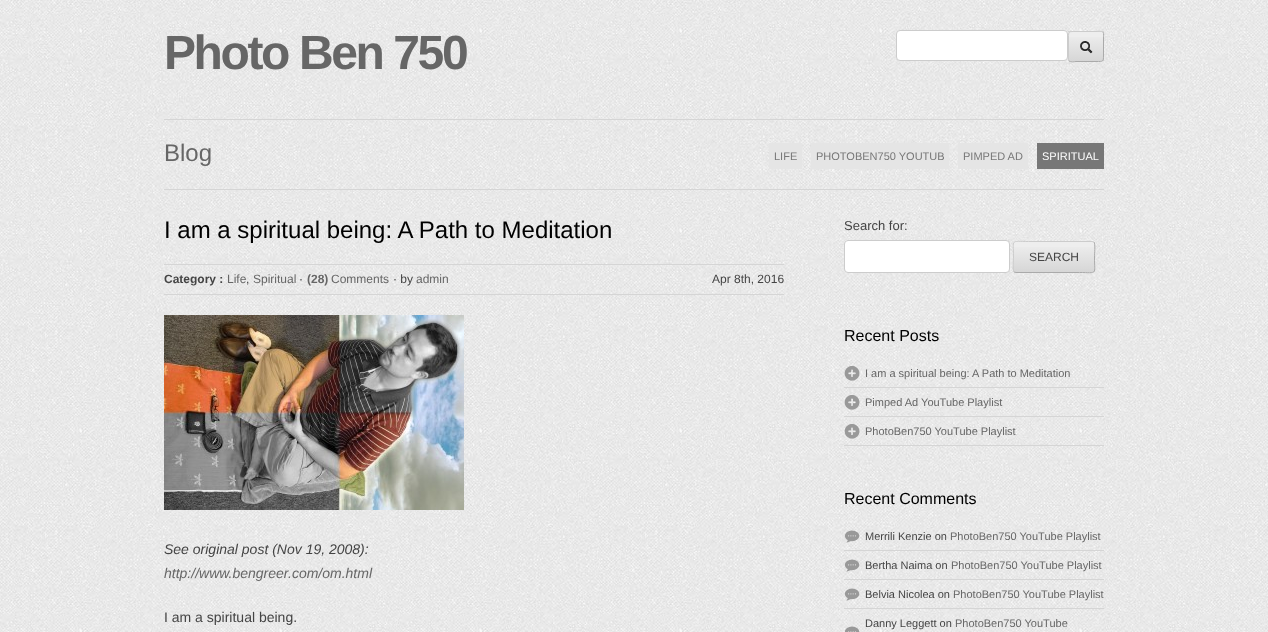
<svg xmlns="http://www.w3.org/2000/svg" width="1268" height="632">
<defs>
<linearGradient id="g1" gradientUnits="userSpaceOnUse" x1="1086" y1="3" x2="1086" y2="32"><stop offset="0" stop-color="#fff" stop-opacity="0.1"/><stop offset="1" stop-color="#000" stop-opacity="0.1"/></linearGradient>
<linearGradient id="g2" gradientUnits="userSpaceOnUse" x1="1086" y1="32" x2="1086" y2="61"><stop offset="0" stop-color="#fff" stop-opacity="0.1"/><stop offset="1" stop-color="#000" stop-opacity="0.1"/></linearGradient>
<linearGradient id="g3" gradientUnits="userSpaceOnUse" x1="1054" y1="242" x2="1054" y2="272"><stop offset="0" stop-color="#fff" stop-opacity="0.1"/><stop offset="1" stop-color="#000" stop-opacity="0.1"/></linearGradient>
</defs>
<rect width="100%" height="100%" fill="#fff"/>
<image x="0" y="0" width="1268" height="632" href="media/1.png"/>
<text x="164" y="69" style="font-family:Liberation Sans;font-size:48px;font-weight:bold;letter-spacing:-2.4px;fill:#666">Photo Ben 750</text>
<rect x="896.5" y="30.5" width="171" height="30" rx="3.5" fill="#fff" stroke="#ccc"/>
<rect x="1068" y="31" width="36" height="31" rx="3" fill="#eee"/>
<rect x="1068" y="31" width="36" height="1" fill="url(#g1)"/>
<rect x="1068" y="37" width="36" height="24" fill="url(#g2)"/>
<path d="M1103 32c1 1.5 .5 5 .5 6v17c0 7 0 6.5-7.5 6.5h-20c-1 0-5 1-7-.5" fill="none" stroke="#aaa"/>
<path d="M1069 61c-1-1.5-.5-5-.5-6v-17c0-7 0-6.5 7.5-6.5h20c1 0 5-1 7 .5" fill="none" stroke="#ccc"/>
<image x="1080" y="41" width="13" height="13" href="media/2.png"/>
<rect x="164" y="119" width="940" height="1" fill="#d5d5d5"/>
<rect x="164" y="189" width="940" height="1" fill="#d5d5d5"/>
<text x="164" y="161" style="font-family:Liberation Sans;font-size:24px;fill:#666">Blog</text>
<rect x="769" y="143" width="33" height="26" fill="#e5e5e5"/>
<text x="774" y="160" style="font-family:Liberation Sans;font-size:11px;fill:#777">LIFE</text>
<rect x="811" y="143" width="138" height="26" fill="#e5e5e5"/>
<text x="816" y="160" style="font-family:Liberation Sans;font-size:11px;fill:#777">PHOTOBEN750 YOUTUB</text>
<rect x="958" y="143" width="70" height="26" fill="#e5e5e5"/>
<text x="963" y="160" style="font-family:Liberation Sans;font-size:11px;fill:#777">PIMPED AD</text>
<rect x="1037" y="143" width="67" height="26" fill="#777"/>
<text x="1042" y="160" style="font-family:Liberation Sans;font-size:11px;fill:#fff">SPIRITUAL</text>
<text x="164" y="238" style="font-family:Liberation Sans;font-size:24px;fill:#000">I am a spiritual being: A Path to Meditation</text>
<rect x="164" y="264" width="620" height="1" fill="#d5d5d5"/>
<rect x="164" y="294" width="620" height="1" fill="#d5d5d5"/>
<text x="164" y="283" style="font-family:Liberation Sans;font-size:12px;font-weight:bold;fill:#444">Category :</text>
<text x="227" y="283" style="font-family:Liberation Sans;font-size:12px;fill:#666">Life</text>
<text x="253" y="283" style="font-family:Liberation Sans;font-size:12px;fill:#666">Spiritual</text>
<text x="299" y="283" style="font-family:Liberation Sans;font-size:12px;fill:#444">·</text>
<text x="307" y="283" style="font-family:Liberation Sans;font-size:12px;font-weight:bold;fill:#666">(28)</text>
<text x="331" y="283" style="font-family:Liberation Sans;font-size:12px;fill:#666">Comments</text>
<text x="393" y="283" style="font-family:Liberation Sans;font-size:12px;fill:#444">· by</text>
<text x="416" y="283" style="font-family:Liberation Sans;font-size:12px;fill:#666">admin</text>
<text x="712" y="283" style="font-family:Liberation Sans;font-size:12px;fill:#444">Apr 8th, 2016</text>
<text x="246" y="283" style="font-family:Liberation Sans;font-size:12px;fill:#444">,</text>
<image x="164" y="315" width="300" height="195" href="media/3.png"/>
<text x="164" y="554" style="font-family:Liberation Sans;font-size:14px;font-style:italic;fill:#444">See original post (Nov 19, 2008):</text>
<text x="164" y="578" style="font-family:Liberation Sans;font-size:14px;font-style:italic;fill:#666">http://www.bengreer.com/om.html</text>
<text x="164" y="622" style="font-family:Liberation Sans;font-size:14px;fill:#444">I am a spiritual being.</text>
<text x="844" y="230" style="font-family:Liberation Sans;font-size:13px;fill:#444">Search for:</text>
<rect x="844.5" y="240.5" width="165" height="32" rx="3.5" fill="#fff" stroke="#ccc"/>
<rect x="1013" y="241" width="82" height="32" rx="3" fill="#eee"/>
<rect x="1013" y="247" width="82" height="25" fill="url(#g3)"/>
<path d="M1094 242c1.5 2 .5 12.5 .5 15c0 18.5 3.5 15.5-15 15.5h-63.5l-2-.5" fill="none" stroke="#aaa"/>
<path d="M1014 272c-1.5-2-.5-12.5-.5-15c0-18.5-3.5-15.5 15-15.5h63.5l2 .5" fill="none" stroke="#ccc"/>
<text x="1029" y="261" style="font-family:Liberation Sans;font-size:12px;fill:#444">SEARCH</text>
<text x="844" y="341" style="font-family:Liberation Sans;font-size:16px;fill:#000">Recent Posts</text>
<image x="844" y="366" width="16" height="15" href="media/4.png"/>
<rect x="844" y="387" width="260" height="1" fill="#d5d5d5"/>
<text x="865" y="377" style="font-family:Liberation Sans;font-size:11px;fill:#666">I am a spiritual being: A Path to Meditation</text>
<image x="844" y="395" width="16" height="15" href="media/5.png"/>
<rect x="844" y="416" width="260" height="1" fill="#d5d5d5"/>
<text x="865" y="406" style="font-family:Liberation Sans;font-size:11px;fill:#666">Pimped Ad YouTube Playlist</text>
<image x="844" y="424" width="16" height="15" href="media/6.png"/>
<rect x="844" y="445" width="260" height="1" fill="#d5d5d5"/>
<text x="865" y="435" style="font-family:Liberation Sans;font-size:11px;fill:#666">PhotoBen750 YouTube Playlist</text>
<text x="844" y="504" style="font-family:Liberation Sans;font-size:16px;fill:#000">Recent Comments</text>
<image x="844" y="530" width="16" height="13" href="media/7.png"/>
<rect x="844" y="550" width="260" height="1" fill="#d5d5d5"/>
<text x="865" y="540" style="font-family:Liberation Sans;font-size:11px;fill:#444">Merrili Kenzie on</text>
<text x="950" y="540" style="font-family:Liberation Sans;font-size:11px;fill:#666">PhotoBen750 YouTube Playlist</text>
<image x="844" y="559" width="16" height="13" href="media/8.png"/>
<rect x="844" y="579" width="260" height="1" fill="#d5d5d5"/>
<text x="865" y="569" style="font-family:Liberation Sans;font-size:11px;fill:#444">Bertha Naima on</text>
<text x="951" y="569" style="font-family:Liberation Sans;font-size:11px;fill:#666">PhotoBen750 YouTube Playlist</text>
<image x="844" y="588" width="16" height="13" href="media/9.png"/>
<rect x="844" y="608" width="260" height="1" fill="#d5d5d5"/>
<text x="865" y="598" style="font-family:Liberation Sans;font-size:11px;fill:#444">Belvia Nicolea on</text>
<text x="953" y="598" style="font-family:Liberation Sans;font-size:11px;fill:#666">PhotoBen750 YouTube Playlist</text>
<image x="844" y="626" width="16" height="6" href="media/10.png"/>
<text x="865" y="627" style="font-family:Liberation Sans;font-size:11px;fill:#444">Danny Leggett on</text>
<text x="955" y="627" style="font-family:Liberation Sans;font-size:11px;fill:#666">PhotoBen750 YouTube</text>
</svg>
